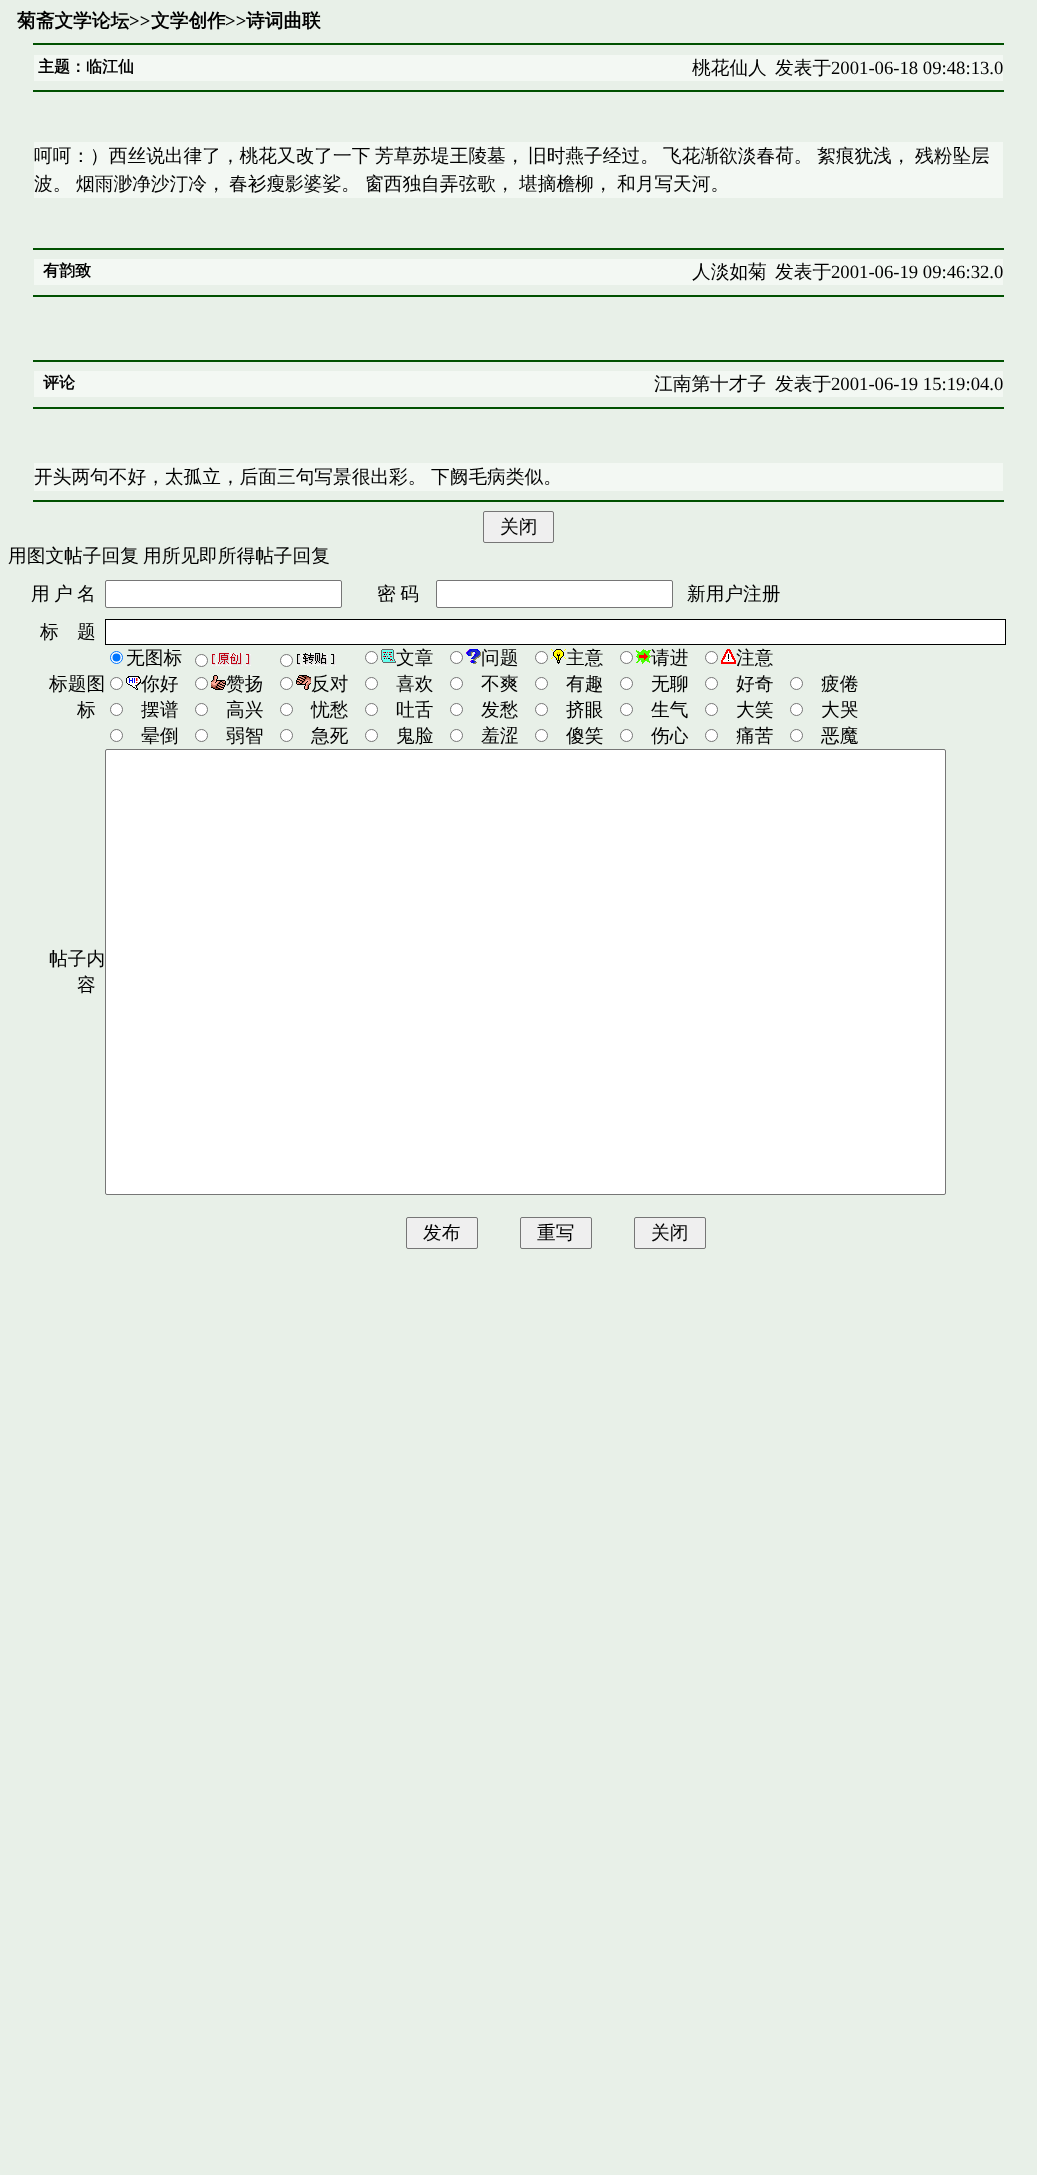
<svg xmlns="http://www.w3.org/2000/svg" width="1037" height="2175">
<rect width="100%" height="100%" fill="#e8f0e8"/>
<text x="17" y="27" style="font-family:WenQuanYi Zen Hei;font-size:18.7px;font-weight:bold;fill:#000">菊斋文学论坛</text>
<text x="129" y="27" style="font-family:Liberation Serif;font-size:18.7px;font-weight:bold;fill:#000">&gt;&gt;</text>
<text x="151" y="27" style="font-family:WenQuanYi Zen Hei;font-size:18.7px;font-weight:bold;fill:#000">文学创作</text>
<text x="225" y="27" style="font-family:Liberation Serif;font-size:18.7px;font-weight:bold;fill:#000">&gt;&gt;</text>
<text x="246" y="27" style="font-family:WenQuanYi Zen Hei;font-size:18.7px;font-weight:bold;fill:#000">诗词曲联</text>
<rect x="33" y="43" width="971" height="2" fill="#005100"/>
<rect x="34" y="55" width="969" height="26" fill="#f3f8f3"/>
<text x="38" y="72" style="font-family:WenQuanYi Zen Hei;font-size:16px;font-weight:bold;fill:#000">主题：临江仙</text>
<text x="692" y="74" style="font-family:WenQuanYi Zen Hei;font-size:18.7px;font-weight:500;fill:#000">桃花仙人</text>
<text x="775" y="74" style="font-family:WenQuanYi Zen Hei;font-size:18.7px;font-weight:500;fill:#000">发表于</text>
<text x="831" y="74" style="font-family:Liberation Serif;font-size:18.7px;fill:#000">2001-06-18 09:48:13.0</text>
<rect x="33" y="90" width="971" height="2" fill="#005100"/>
<rect x="34" y="142" width="969" height="56" fill="#f3f8f3"/>
<text x="34" y="162" word-spacing="-1" style="font-family:WenQuanYi Zen Hei;font-size:18.7px;font-weight:500;fill:#000">呵呵：）西丝说出律了，桃花又改了一下 芳草苏堤王陵墓，</text>
<text x="528" y="162" style="font-family:WenQuanYi Zen Hei;font-size:18.7px;font-weight:500;fill:#000">旧时燕子经过。</text>
<text x="663" y="162" style="font-family:WenQuanYi Zen Hei;font-size:18.7px;font-weight:500;fill:#000">飞花渐欲淡春荷。</text>
<text x="817" y="162" style="font-family:WenQuanYi Zen Hei;font-size:18.7px;font-weight:500;fill:#000">絮痕犹浅，</text>
<text x="915" y="162" style="font-family:WenQuanYi Zen Hei;font-size:18.7px;font-weight:500;fill:#000">残粉坠层</text>
<text x="34" y="190" style="font-family:WenQuanYi Zen Hei;font-size:18.7px;font-weight:500;fill:#000">波。</text>
<text x="76" y="190" style="font-family:WenQuanYi Zen Hei;font-size:18.7px;font-weight:500;fill:#000">烟雨渺净沙汀冷，</text>
<text x="229" y="190" style="font-family:WenQuanYi Zen Hei;font-size:18.7px;font-weight:500;fill:#000">春衫瘦影婆娑。</text>
<text x="365" y="190" style="font-family:WenQuanYi Zen Hei;font-size:18.7px;font-weight:500;fill:#000">窗西独自弄弦歌，</text>
<text x="519" y="190" style="font-family:WenQuanYi Zen Hei;font-size:18.7px;font-weight:500;fill:#000">堪摘檐柳，</text>
<text x="617" y="190" style="font-family:WenQuanYi Zen Hei;font-size:18.7px;font-weight:500;fill:#000">和月写天河。</text>
<rect x="33" y="248" width="971" height="2" fill="#005100"/>
<rect x="34" y="259" width="969" height="26" fill="#f3f8f3"/>
<text x="43" y="276" style="font-family:WenQuanYi Zen Hei;font-size:16px;font-weight:bold;fill:#000">有韵致</text>
<text x="692" y="278" style="font-family:WenQuanYi Zen Hei;font-size:18.7px;font-weight:500;fill:#000">人淡如菊</text>
<text x="775" y="278" style="font-family:WenQuanYi Zen Hei;font-size:18.7px;font-weight:500;fill:#000">发表于</text>
<text x="831" y="278" style="font-family:Liberation Serif;font-size:18.7px;fill:#000">2001-06-19 09:46:32.0</text>
<rect x="33" y="295" width="971" height="2" fill="#005100"/>
<rect x="33" y="360" width="971" height="2" fill="#005100"/>
<rect x="34" y="371" width="969" height="26" fill="#f3f8f3"/>
<text x="43" y="388" style="font-family:WenQuanYi Zen Hei;font-size:16px;font-weight:bold;fill:#000">评论</text>
<text x="654" y="390" style="font-family:WenQuanYi Zen Hei;font-size:18.7px;font-weight:500;fill:#000">江南第十才子</text>
<text x="775" y="390" style="font-family:WenQuanYi Zen Hei;font-size:18.7px;font-weight:500;fill:#000">发表于</text>
<text x="831" y="390" style="font-family:Liberation Serif;font-size:18.7px;fill:#000">2001-06-19 15:19:04.0</text>
<rect x="33" y="407" width="971" height="2" fill="#005100"/>
<rect x="34" y="463" width="969" height="28" fill="#f3f8f3"/>
<text x="34" y="483" word-spacing="-1" style="font-family:WenQuanYi Zen Hei;font-size:18.7px;font-weight:500;fill:#000">开头两句不好，太孤立，后面三句写景很出彩。 下阙毛病类似。</text>
<rect x="33" y="500" width="971" height="2" fill="#005100"/>
<rect x="483.5" y="511.5" width="70" height="31" rx="1.5" fill="#efefef" stroke="#767676"/>
<text x="500" y="533" style="font-family:WenQuanYi Zen Hei;font-size:18.7px;font-weight:500;fill:#000">关闭</text>
<text x="8" y="562" style="font-family:WenQuanYi Zen Hei;font-size:18.7px;font-weight:500;fill:#000">用图文帖子回复</text>
<text x="143" y="562" style="font-family:WenQuanYi Zen Hei;font-size:18.7px;font-weight:500;fill:#000">用所见即所得帖子回复</text>
<text x="31" y="600" style="font-family:WenQuanYi Zen Hei;font-size:18.7px;font-weight:500;fill:#000">用</text>
<text x="54" y="600" style="font-family:WenQuanYi Zen Hei;font-size:18.7px;font-weight:500;fill:#000">户</text>
<text x="77" y="600" style="font-family:WenQuanYi Zen Hei;font-size:18.7px;font-weight:500;fill:#000">名</text>
<rect x="105.5" y="580.5" width="236" height="27" rx="1.5" fill="#fff" stroke="#767676"/>
<text x="377" y="600" word-spacing="-1" style="font-family:WenQuanYi Zen Hei;font-size:18.7px;font-weight:500;fill:#000">密 码</text>
<rect x="436.5" y="580.5" width="236" height="27" rx="1.5" fill="#fff" stroke="#767676"/>
<text x="687" y="600" style="font-family:WenQuanYi Zen Hei;font-size:18.7px;font-weight:500;fill:#000">新用户注册</text>
<text x="40" y="638" style="font-family:WenQuanYi Zen Hei;font-size:18.7px;font-weight:500;fill:#000">标</text>
<text x="77" y="638" style="font-family:WenQuanYi Zen Hei;font-size:18.7px;font-weight:500;fill:#000">题</text>
<rect x="105.5" y="619.5" width="900" height="25" fill="#fff" stroke="#000"/>
<text x="49" y="690" style="font-family:WenQuanYi Zen Hei;font-size:18.7px;font-weight:500;fill:#000">标题图</text>
<text x="77" y="716" style="font-family:WenQuanYi Zen Hei;font-size:18.7px;font-weight:500;fill:#000">标</text>
<circle cx="116.5" cy="657.5" r="6" fill="#fff" stroke="#0075ff"/>
<circle cx="116.5" cy="657.5" r="4" fill="#0075ff"/>
<text x="126" y="664" style="font-family:WenQuanYi Zen Hei;font-size:18.7px;font-weight:500;fill:#000">无图标</text>
<circle cx="201.5" cy="660.5" r="6" fill="#fff" stroke="#767676"/>
<image x="212" y="653" width="39" height="13" href="media/1.png"/>
<circle cx="286.5" cy="660.5" r="6" fill="#fff" stroke="#767676"/>
<image x="297" y="653" width="39" height="13" href="media/2.png"/>
<circle cx="371.5" cy="657.5" r="6" fill="#fff" stroke="#767676"/>
<image x="381" y="649" width="15" height="14" href="media/3.png"/>
<text x="396" y="664" style="font-family:WenQuanYi Zen Hei;font-size:18.7px;font-weight:500;fill:#000">文章</text>
<circle cx="456.5" cy="657.5" r="6" fill="#fff" stroke="#767676"/>
<image x="466" y="649" width="15" height="15" href="media/4.png"/>
<text x="481" y="664" style="font-family:WenQuanYi Zen Hei;font-size:18.7px;font-weight:500;fill:#000">问题</text>
<circle cx="541.5" cy="657.5" r="6" fill="#fff" stroke="#767676"/>
<image x="551" y="649" width="15" height="15" href="media/5.png"/>
<text x="566" y="664" style="font-family:WenQuanYi Zen Hei;font-size:18.7px;font-weight:500;fill:#000">主意</text>
<circle cx="626.5" cy="657.5" r="6" fill="#fff" stroke="#767676"/>
<image x="636" y="649" width="15" height="15" href="media/6.png"/>
<text x="651" y="664" style="font-family:WenQuanYi Zen Hei;font-size:18.7px;font-weight:500;fill:#000">请进</text>
<circle cx="711.5" cy="657.5" r="6" fill="#fff" stroke="#767676"/>
<image x="721" y="649" width="15" height="15" href="media/7.png"/>
<text x="736" y="664" style="font-family:WenQuanYi Zen Hei;font-size:18.7px;font-weight:500;fill:#000">注意</text>
<circle cx="116.5" cy="683.5" r="6" fill="#fff" stroke="#767676"/>
<image x="126" y="676" width="15" height="14" href="media/8.png"/>
<text x="141" y="690" style="font-family:WenQuanYi Zen Hei;font-size:18.7px;font-weight:500;fill:#000">你好</text>
<circle cx="201.5" cy="683.5" r="6" fill="#fff" stroke="#767676"/>
<image x="211" y="675" width="15" height="15" href="media/9.png"/>
<text x="226" y="690" style="font-family:WenQuanYi Zen Hei;font-size:18.7px;font-weight:500;fill:#000">赞扬</text>
<circle cx="286.5" cy="683.5" r="6" fill="#fff" stroke="#767676"/>
<image x="296" y="675" width="15" height="15" href="media/10.png"/>
<text x="311" y="690" style="font-family:WenQuanYi Zen Hei;font-size:18.7px;font-weight:500;fill:#000">反对</text>
<circle cx="371.5" cy="683.5" r="6" fill="#fff" stroke="#767676"/>
<text x="396" y="690" style="font-family:WenQuanYi Zen Hei;font-size:18.7px;font-weight:500;fill:#000">喜欢</text>
<circle cx="456.5" cy="683.5" r="6" fill="#fff" stroke="#767676"/>
<text x="481" y="690" style="font-family:WenQuanYi Zen Hei;font-size:18.7px;font-weight:500;fill:#000">不爽</text>
<circle cx="541.5" cy="683.5" r="6" fill="#fff" stroke="#767676"/>
<text x="566" y="690" style="font-family:WenQuanYi Zen Hei;font-size:18.7px;font-weight:500;fill:#000">有趣</text>
<circle cx="626.5" cy="683.5" r="6" fill="#fff" stroke="#767676"/>
<text x="651" y="690" style="font-family:WenQuanYi Zen Hei;font-size:18.7px;font-weight:500;fill:#000">无聊</text>
<circle cx="711.5" cy="683.5" r="6" fill="#fff" stroke="#767676"/>
<text x="736" y="690" style="font-family:WenQuanYi Zen Hei;font-size:18.7px;font-weight:500;fill:#000">好奇</text>
<circle cx="796.5" cy="683.5" r="6" fill="#fff" stroke="#767676"/>
<text x="821" y="690" style="font-family:WenQuanYi Zen Hei;font-size:18.7px;font-weight:500;fill:#000">疲倦</text>
<circle cx="116.5" cy="709.5" r="6" fill="#fff" stroke="#767676"/>
<text x="141" y="716" style="font-family:WenQuanYi Zen Hei;font-size:18.7px;font-weight:500;fill:#000">摆谱</text>
<circle cx="201.5" cy="709.5" r="6" fill="#fff" stroke="#767676"/>
<text x="226" y="716" style="font-family:WenQuanYi Zen Hei;font-size:18.7px;font-weight:500;fill:#000">高兴</text>
<circle cx="286.5" cy="709.5" r="6" fill="#fff" stroke="#767676"/>
<text x="311" y="716" style="font-family:WenQuanYi Zen Hei;font-size:18.7px;font-weight:500;fill:#000">忧愁</text>
<circle cx="371.5" cy="709.5" r="6" fill="#fff" stroke="#767676"/>
<text x="396" y="716" style="font-family:WenQuanYi Zen Hei;font-size:18.7px;font-weight:500;fill:#000">吐舌</text>
<circle cx="456.5" cy="709.5" r="6" fill="#fff" stroke="#767676"/>
<text x="481" y="716" style="font-family:WenQuanYi Zen Hei;font-size:18.7px;font-weight:500;fill:#000">发愁</text>
<circle cx="541.5" cy="709.5" r="6" fill="#fff" stroke="#767676"/>
<text x="566" y="716" style="font-family:WenQuanYi Zen Hei;font-size:18.7px;font-weight:500;fill:#000">挤眼</text>
<circle cx="626.5" cy="709.5" r="6" fill="#fff" stroke="#767676"/>
<text x="651" y="716" style="font-family:WenQuanYi Zen Hei;font-size:18.7px;font-weight:500;fill:#000">生气</text>
<circle cx="711.5" cy="709.5" r="6" fill="#fff" stroke="#767676"/>
<text x="736" y="716" style="font-family:WenQuanYi Zen Hei;font-size:18.7px;font-weight:500;fill:#000">大笑</text>
<circle cx="796.5" cy="709.5" r="6" fill="#fff" stroke="#767676"/>
<text x="821" y="716" style="font-family:WenQuanYi Zen Hei;font-size:18.7px;font-weight:500;fill:#000">大哭</text>
<circle cx="116.5" cy="735.5" r="6" fill="#fff" stroke="#767676"/>
<text x="141" y="742" style="font-family:WenQuanYi Zen Hei;font-size:18.7px;font-weight:500;fill:#000">晕倒</text>
<circle cx="201.5" cy="735.5" r="6" fill="#fff" stroke="#767676"/>
<text x="226" y="742" style="font-family:WenQuanYi Zen Hei;font-size:18.7px;font-weight:500;fill:#000">弱智</text>
<circle cx="286.5" cy="735.5" r="6" fill="#fff" stroke="#767676"/>
<text x="311" y="742" style="font-family:WenQuanYi Zen Hei;font-size:18.7px;font-weight:500;fill:#000">急死</text>
<circle cx="371.5" cy="735.5" r="6" fill="#fff" stroke="#767676"/>
<text x="396" y="742" style="font-family:WenQuanYi Zen Hei;font-size:18.7px;font-weight:500;fill:#000">鬼脸</text>
<circle cx="456.5" cy="735.5" r="6" fill="#fff" stroke="#767676"/>
<text x="481" y="742" style="font-family:WenQuanYi Zen Hei;font-size:18.7px;font-weight:500;fill:#000">羞涩</text>
<circle cx="541.5" cy="735.5" r="6" fill="#fff" stroke="#767676"/>
<text x="566" y="742" style="font-family:WenQuanYi Zen Hei;font-size:18.7px;font-weight:500;fill:#000">傻笑</text>
<circle cx="626.5" cy="735.5" r="6" fill="#fff" stroke="#767676"/>
<text x="651" y="742" style="font-family:WenQuanYi Zen Hei;font-size:18.7px;font-weight:500;fill:#000">伤心</text>
<circle cx="711.5" cy="735.5" r="6" fill="#fff" stroke="#767676"/>
<text x="736" y="742" style="font-family:WenQuanYi Zen Hei;font-size:18.7px;font-weight:500;fill:#000">痛苦</text>
<circle cx="796.5" cy="735.5" r="6" fill="#fff" stroke="#767676"/>
<text x="821" y="742" style="font-family:WenQuanYi Zen Hei;font-size:18.7px;font-weight:500;fill:#000">恶魔</text>
<text x="49" y="965" style="font-family:WenQuanYi Zen Hei;font-size:18.7px;font-weight:500;fill:#000">帖子内</text>
<text x="77" y="991" style="font-family:WenQuanYi Zen Hei;font-size:18.7px;font-weight:500;fill:#000">容</text>
<rect x="105.5" y="749.5" width="840" height="445" rx="1.5" fill="#fff" stroke="#767676"/>
<rect x="406.5" y="1217.5" width="71" height="31" rx="1.5" fill="#efefef" stroke="#767676"/>
<text x="423" y="1239" style="font-family:WenQuanYi Zen Hei;font-size:18.7px;font-weight:500;fill:#000">发布</text>
<rect x="520.5" y="1217.5" width="71" height="31" rx="1.5" fill="#efefef" stroke="#767676"/>
<text x="537" y="1239" style="font-family:WenQuanYi Zen Hei;font-size:18.7px;font-weight:500;fill:#000">重写</text>
<rect x="634.5" y="1217.5" width="71" height="31" rx="1.5" fill="#efefef" stroke="#767676"/>
<text x="651" y="1239" style="font-family:WenQuanYi Zen Hei;font-size:18.7px;font-weight:500;fill:#000">关闭</text>
</svg>
